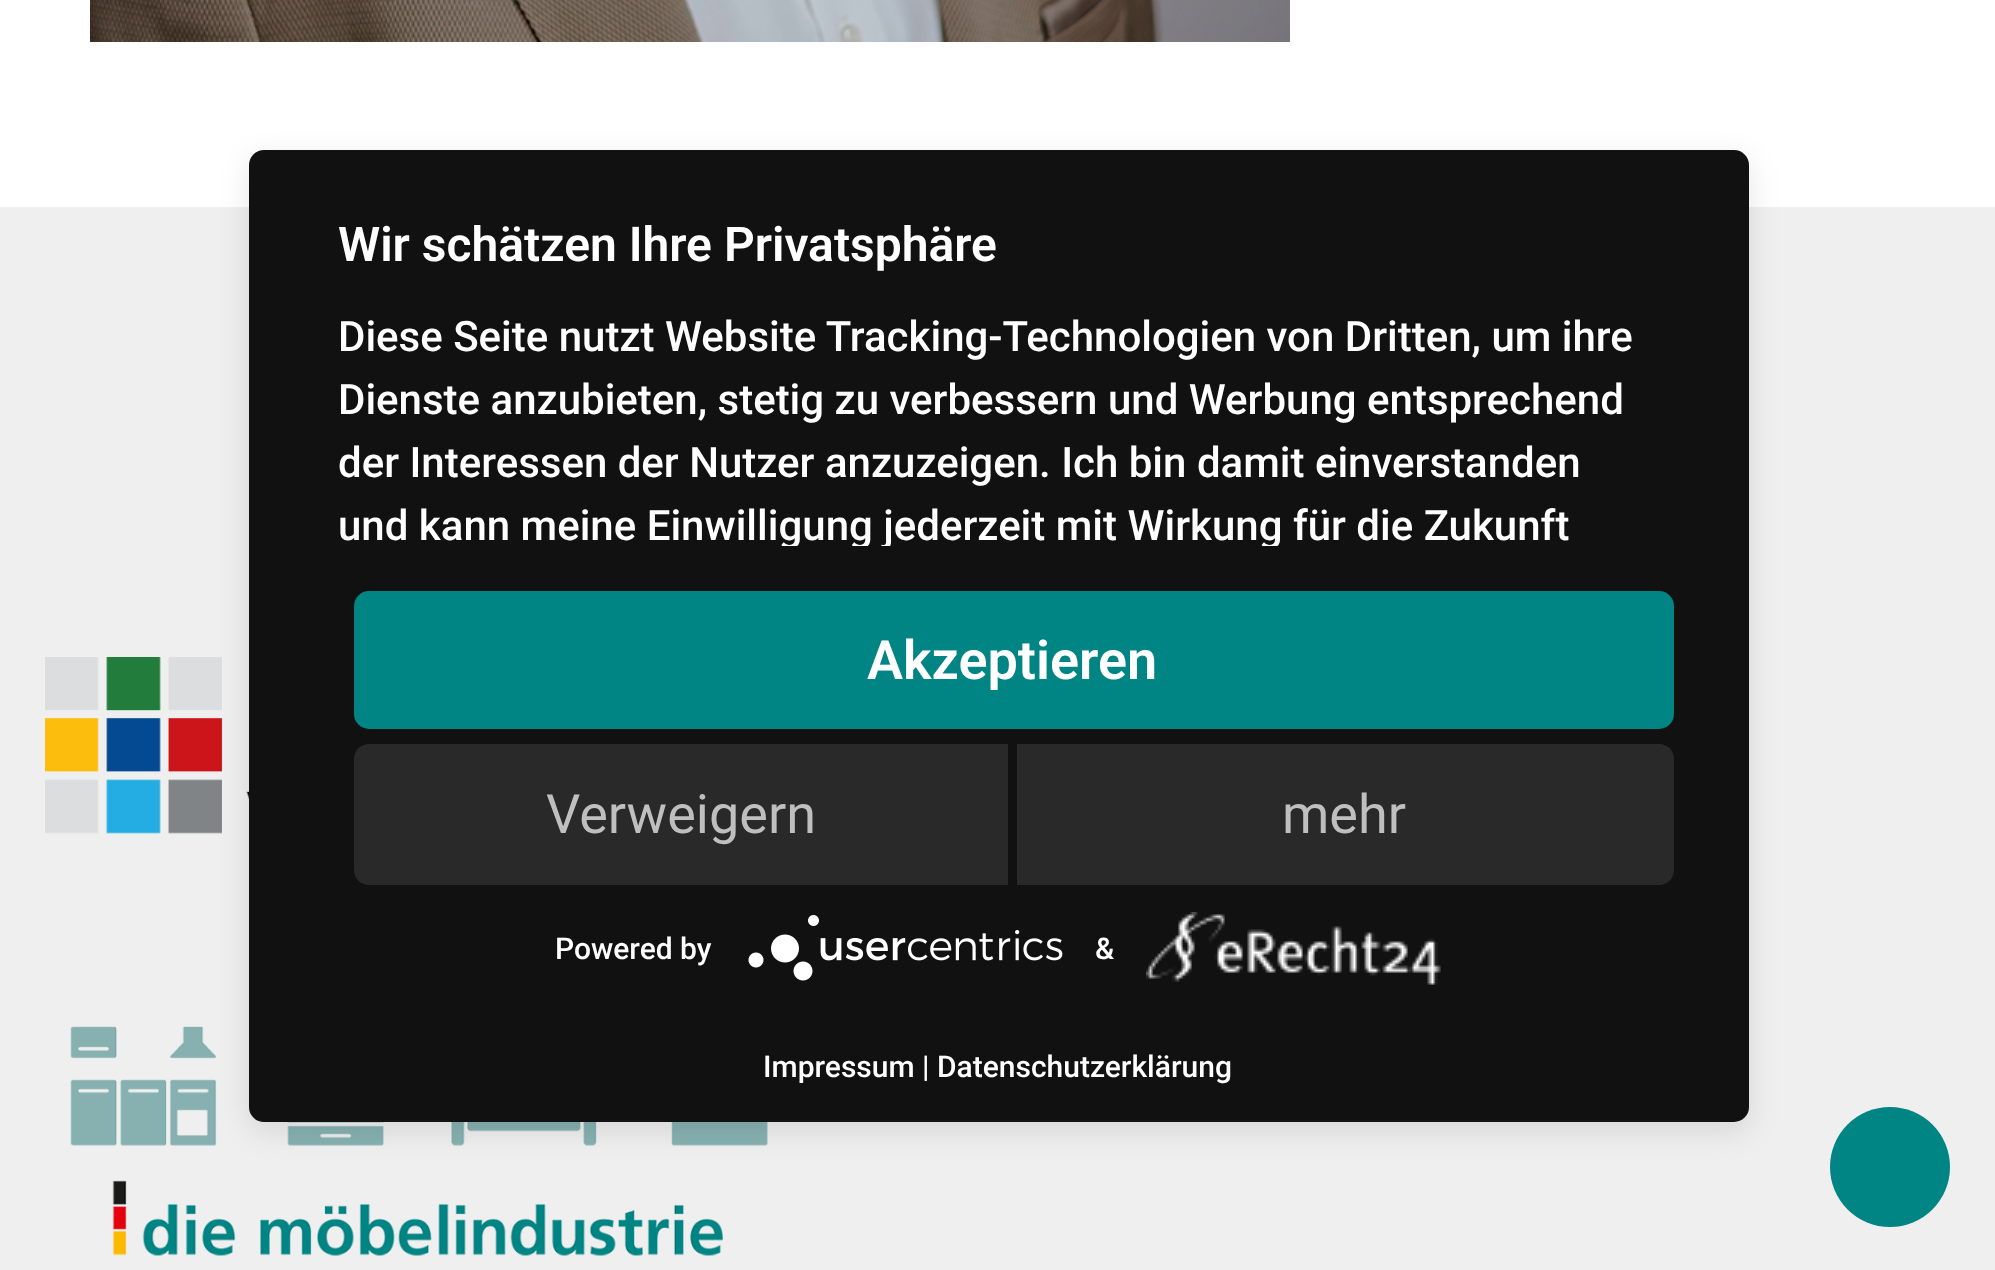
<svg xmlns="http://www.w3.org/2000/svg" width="1995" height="1270">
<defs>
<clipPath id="clip1"><rect x="339" y="210" width="1320" height="336"/></clipPath>
</defs>
<rect width="100%" height="100%" fill="#fff"/>
<image x="90" y="0" width="1200" height="42" href="media/1.png"/>
<rect y="207" width="1995" height="1063" fill="#efefef"/>
<image x="45" y="657" width="723" height="599" href="media/2.png"/>
<circle cx="1890" cy="1167" r="60" fill="#008484"/>
<rect x="249" y="159" width="1500" height="972" rx="15" fill="#0000001a" filter="blur(15px)"/>
<rect x="249" y="150" width="1500" height="972" rx="15" fill="#111"/>
<g clip-path="url(#clip1)">
<text x="338" y="261" style="font-family:Roboto;font-size:48px;font-weight:600;fill:#fff">Wir schätzen Ihre Privatsphäre</text>
</g>
<text x="338" y="351" style="font-family:Roboto;font-size:42px;font-weight:500;fill:#fff">Diese Seite nutzt Website Tracking-Technologien von Dritten, um ihre</text>
<text x="338" y="414" style="font-family:Roboto;font-size:42px;font-weight:500;fill:#fff">Dienste anzubieten, stetig zu verbessern und Werbung entsprechend</text>
<text x="338" y="477" style="font-family:Roboto;font-size:42px;font-weight:500;fill:#fff">der Interessen der Nutzer anzuzeigen. Ich bin damit einverstanden</text>
<g clip-path="url(#clip1)">
<text x="338" y="540" style="font-family:Roboto;font-size:42px;font-weight:500;fill:#fff">und kann meine Einwilligung jederzeit mit Wirkung für die Zukunft</text>
</g>
<rect x="354" y="591" width="1320" height="138" rx="15" fill="#008484"/>
<text x="867" y="679" style="font-family:Roboto;font-size:54px;font-weight:600;fill:#fff">Akzeptieren</text>
<path d="M369 744h639v141h-639c-8.5 0-15-6.5-15-15v-111c0-8.5 6.5-15 15-15z" fill="#292929"/>
<text x="546" y="833" style="font-family:Roboto;font-size:54px;fill:#bfbfbf">Verweigern</text>
<path d="M1017 744h642c8.5 0 15 6.5 15 15v111c0 8.5-6.5 15-15 15h-642z" fill="#292929"/>
<text x="1282" y="833" style="font-family:Roboto;font-size:54px;fill:#bfbfbf">mehr</text>
<text x="555" y="959" style="font-family:Roboto;font-size:30px;font-weight:500;fill:#fff">Powered by</text>
<image x="748" y="915" width="315" height="66" href="media/3.png"/>
<text x="1095" y="959" style="font-family:Roboto;font-size:30px;font-weight:500;fill:#fff">&amp;</text>
<image x="1146" y="912" width="295" height="73" href="media/4.png"/>
<text x="763" y="1077" style="font-family:Roboto;font-size:30px;font-weight:500;fill:#fff">Impressum | Datenschutzerklärung</text>
</svg>
